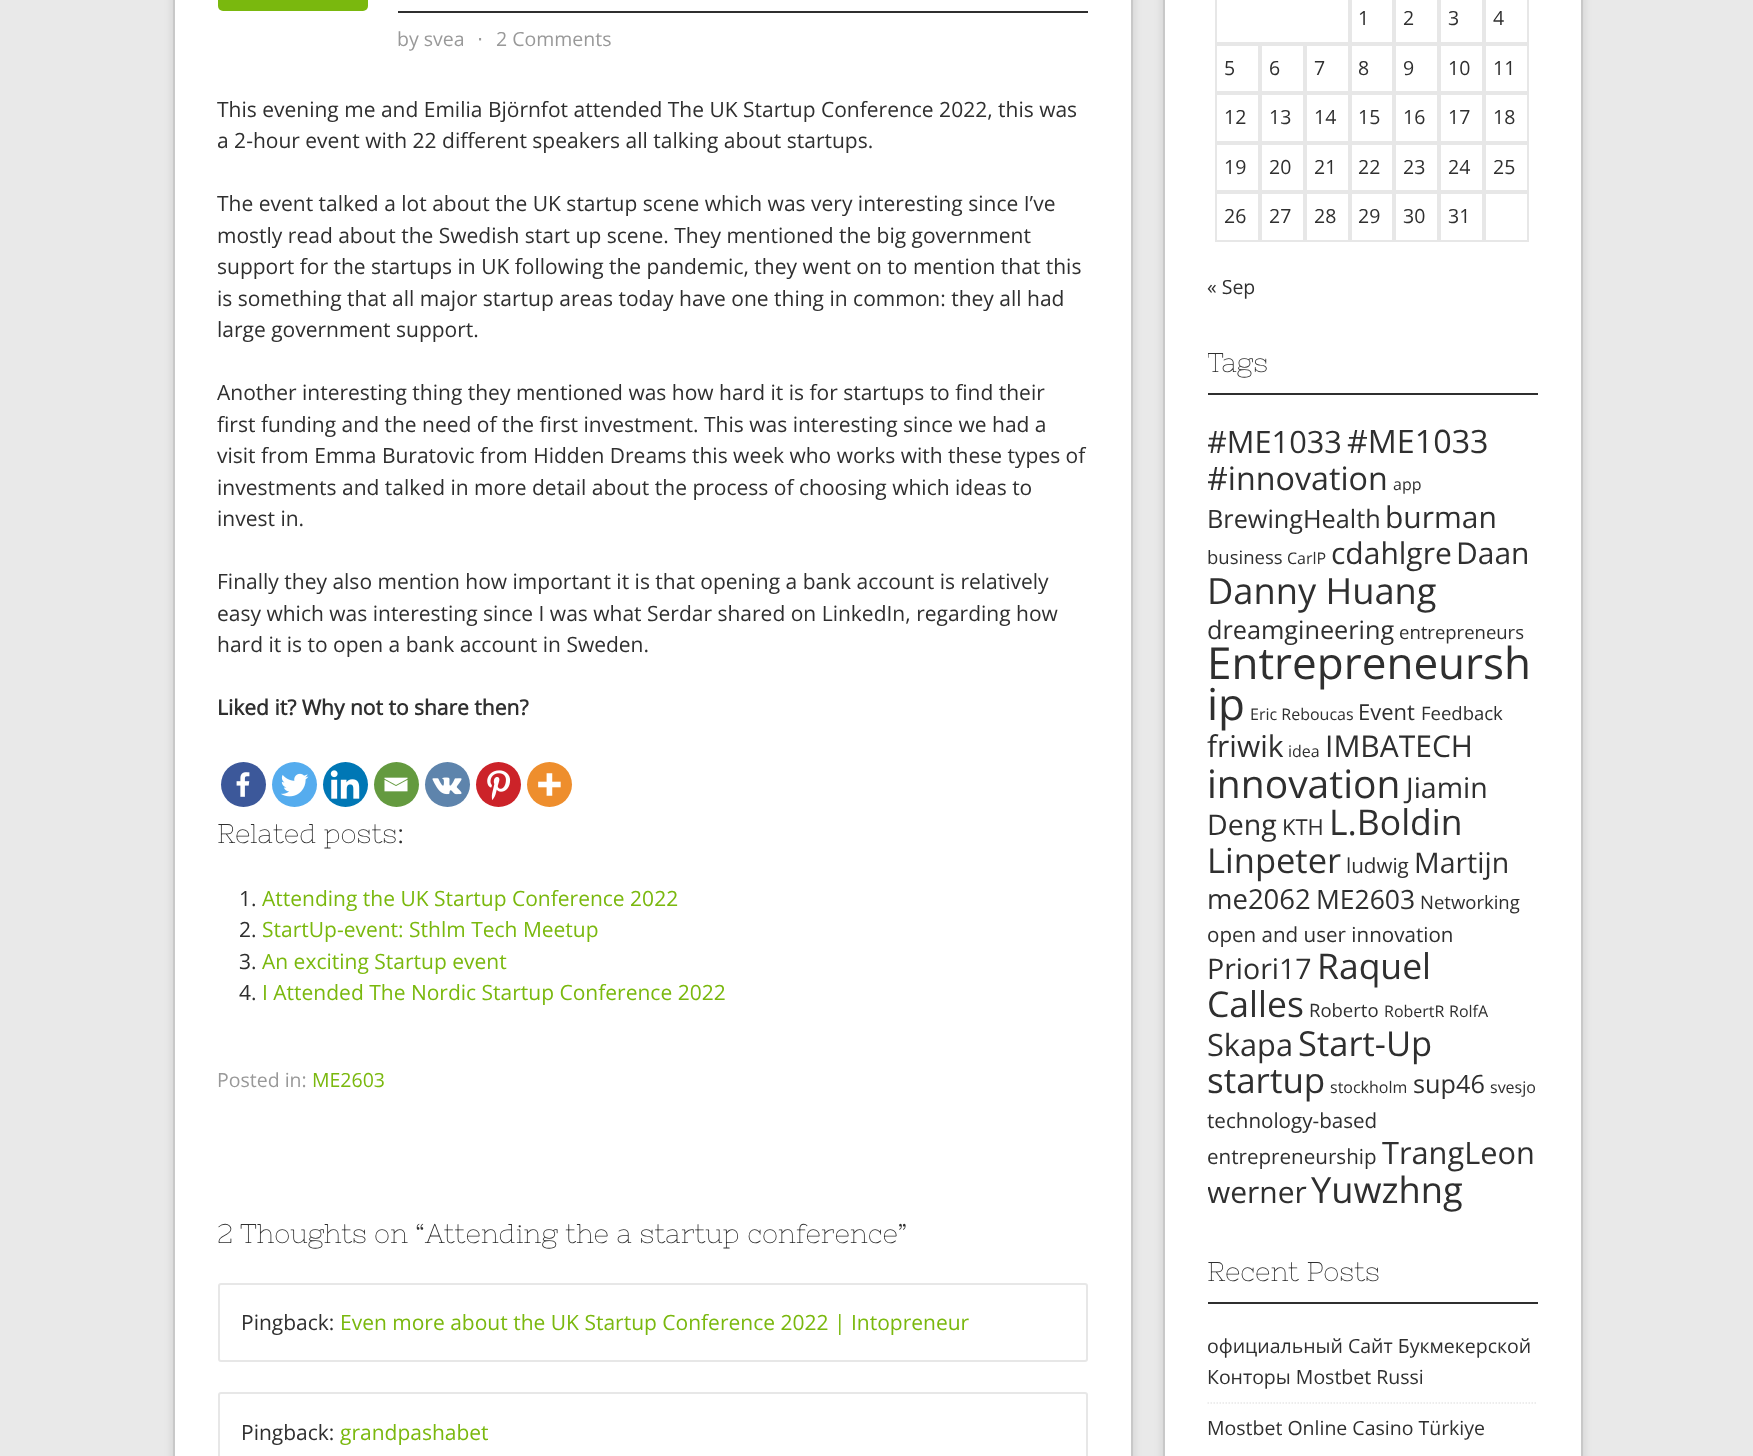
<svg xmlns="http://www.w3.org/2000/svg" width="1753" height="1456">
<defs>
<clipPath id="clip1"><rect x="1208" y="348" width="330" height="864"/></clipPath>
</defs>
<rect width="100%" height="100%" fill="#e9e9e9"/>
<rect x="173" y="-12" width="960" height="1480" fill="#32323226" filter="blur(4px)"/>
<rect x="174" y="-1" width="958" height="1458" fill="#fff" stroke="#c8c8c8" stroke-width="2"/>
<rect x="218" y="-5" width="150" height="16" rx="5" fill="#7ab80e"/>
<rect x="398" y="11" width="690" height="2" fill="#2f2f2f"/>
<text x="397" y="46" style="font-family:Open Sans;font-size:19.5px;fill:#999">by svea</text>
<text x="477" y="46" style="font-family:DejaVu Sans;font-size:19.5px;fill:#999">⋅</text>
<text x="496" y="46" style="font-family:Open Sans;font-size:19.5px;fill:#999">2 Comments</text>
<text x="217" y="117" style="font-family:Open Sans;font-size:21px;fill:#2f2f2f">This evening me and Emilia Björnfot attended The UK Startup Conference 2022, this was</text>
<text x="217" y="148" style="font-family:Open Sans;font-size:21px;fill:#2f2f2f">a 2-hour event with 22 different speakers all talking about startups.</text>
<text x="217" y="211" style="font-family:Open Sans;font-size:21px;fill:#2f2f2f">The event talked a lot about the UK startup scene which was very interesting since I’ve</text>
<text x="217" y="243" style="font-family:Open Sans;font-size:21px;fill:#2f2f2f">mostly read about the Swedish start up scene. They mentioned the big government</text>
<text x="217" y="274" style="font-family:Open Sans;font-size:21px;fill:#2f2f2f">support for the startups in UK following the pandemic, they went on to mention that this</text>
<text x="217" y="306" style="font-family:Open Sans;font-size:21px;fill:#2f2f2f">is something that all major startup areas today have one thing in common: they all had</text>
<text x="217" y="337" style="font-family:Open Sans;font-size:21px;fill:#2f2f2f">large government support.</text>
<text x="217" y="400" style="font-family:Open Sans;font-size:21px;fill:#2f2f2f">Another interesting thing they mentioned was how hard it is for startups to find their</text>
<text x="217" y="432" style="font-family:Open Sans;font-size:21px;fill:#2f2f2f">first funding and the need of the first investment. This was interesting since we had a</text>
<text x="217" y="463" style="font-family:Open Sans;font-size:21px;fill:#2f2f2f">visit from Emma Buratovic from Hidden Dreams this week who works with these types of</text>
<text x="217" y="495" style="font-family:Open Sans;font-size:21px;fill:#2f2f2f">investments and talked in more detail about the process of choosing which ideas to</text>
<text x="217" y="526" style="font-family:Open Sans;font-size:21px;fill:#2f2f2f">invest in.</text>
<text x="217" y="589" style="font-family:Open Sans;font-size:21px;fill:#2f2f2f">Finally they also mention how important it is that opening a bank account is relatively</text>
<text x="217" y="621" style="font-family:Open Sans;font-size:21px;fill:#2f2f2f">easy which was interesting since I was what Serdar shared on LinkedIn, regarding how</text>
<text x="217" y="652" style="font-family:Open Sans;font-size:21px;fill:#2f2f2f">hard it is to open a bank account in Sweden.</text>
<text x="217" y="715" style="font-family:Open Sans;font-size:21px;font-weight:bold;fill:#2f2f2f">Liked it? Why not to share then?</text>
<circle cx="243.5" cy="784.5" r="22.5" fill="#3c589a"/>
<image x="236" y="772" width="14" height="25" href="media/1.png"/>
<circle cx="294.5" cy="784.5" r="22.5" fill="#55acee"/>
<image x="281" y="773" width="28" height="24" href="media/2.png"/>
<circle cx="345.5" cy="784.5" r="22.5" fill="#0077b5"/>
<image x="330" y="770" width="30" height="29" href="media/3.png"/>
<circle cx="396.5" cy="784.5" r="22.5" fill="#649a3f"/>
<image x="384" y="777" width="24" height="15" href="media/4.png"/>
<circle cx="447.5" cy="784.5" r="22.5" fill="#5e84ac"/>
<image x="432" y="777" width="30" height="18" href="media/5.png"/>
<circle cx="498.5" cy="784.5" r="22.5" fill="#cc2329"/>
<image x="487" y="770" width="24" height="30" href="media/6.png"/>
<circle cx="549.5" cy="784.5" r="22.5" fill="#ee8e2d"/>
<image x="538" y="773" width="23" height="23" href="media/7.png"/>
<text x="217" y="843" style="font-family:Nixie One;font-size:27px;fill:#2f2f2f">Related posts:</text>
<text x="239" y="906" style="font-family:Open Sans;font-size:21px;fill:#2f2f2f">1.</text>
<text x="262" y="906" style="font-family:Open Sans;font-size:21px;fill:#7ab80e">Attending the UK Startup Conference 2022</text>
<text x="239" y="937" style="font-family:Open Sans;font-size:21px;fill:#2f2f2f">2.</text>
<text x="262" y="937" style="font-family:Open Sans;font-size:21px;fill:#7ab80e">StartUp-event: Sthlm Tech Meetup</text>
<text x="239" y="969" style="font-family:Open Sans;font-size:21px;fill:#2f2f2f">3.</text>
<text x="262" y="969" style="font-family:Open Sans;font-size:21px;fill:#7ab80e">An exciting Startup event</text>
<text x="239" y="1000" style="font-family:Open Sans;font-size:21px;fill:#2f2f2f">4.</text>
<text x="262" y="1000" style="font-family:Open Sans;font-size:21px;fill:#7ab80e">I Attended The Nordic Startup Conference 2022</text>
<text x="217" y="1087" style="font-family:Open Sans;font-size:19.5px;fill:#999">Posted in:</text>
<text x="312" y="1087" style="font-family:Open Sans;font-size:19.5px;fill:#7ab80e">ME2603</text>
<text x="217" y="1243" word-spacing="-0.5" style="font-family:Nixie One;font-size:27px;fill:#2f2f2f">2 Thoughts on “</text>
<text x="425" y="1243" style="font-family:Nixie One;font-size:27px;fill:#2f2f2f">Attending the a startup conference</text>
<text x="897" y="1243" style="font-family:Nixie One;font-size:27px;fill:#2f2f2f">”</text>
<rect x="219" y="1284" width="868" height="77" rx="2" fill="none" stroke="#e7e7e7" stroke-width="2"/>
<text x="241" y="1330" style="font-family:Open Sans;font-size:21px;fill:#2f2f2f">Pingback:</text>
<text x="340" y="1330" style="font-family:Open Sans;font-size:21px;fill:#7ab80e">Even more about the UK Startup Conference 2022 | Intopreneur</text>
<rect x="219" y="1393" width="868" height="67" rx="2" fill="none" stroke="#e7e7e7" stroke-width="2"/>
<text x="241" y="1440" style="font-family:Open Sans;font-size:21px;fill:#2f2f2f">Pingback:</text>
<text x="340" y="1440" style="font-family:Open Sans;font-size:21px;fill:#7ab80e">grandpashabet</text>
<rect x="1163" y="-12" width="420" height="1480" fill="#32323226" filter="blur(4px)"/>
<rect x="1164" y="-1" width="418" height="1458" fill="#fff" stroke="#c8c8c8" stroke-width="2"/>
<rect x="1216" y="-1" width="133" height="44" fill="none" stroke="#e7e7e7" stroke-width="2"/>
<rect x="1351" y="-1" width="42" height="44" fill="none" stroke="#e7e7e7" stroke-width="2"/>
<text x="1358" y="25" style="font-family:Open Sans;font-size:19.5px;fill:#2f2f2f">1</text>
<rect x="1395" y="-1" width="43" height="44" fill="none" stroke="#e7e7e7" stroke-width="2"/>
<text x="1403" y="25" style="font-family:Open Sans;font-size:19.5px;fill:#2f2f2f">2</text>
<rect x="1440" y="-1" width="43" height="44" fill="none" stroke="#e7e7e7" stroke-width="2"/>
<text x="1448" y="25" style="font-family:Open Sans;font-size:19.5px;fill:#2f2f2f">3</text>
<rect x="1485" y="-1" width="43" height="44" fill="none" stroke="#e7e7e7" stroke-width="2"/>
<text x="1493" y="25" style="font-family:Open Sans;font-size:19.5px;fill:#2f2f2f">4</text>
<rect x="1216" y="45" width="43" height="47" fill="none" stroke="#e7e7e7" stroke-width="2"/>
<text x="1224" y="75" style="font-family:Open Sans;font-size:19.5px;fill:#2f2f2f">5</text>
<rect x="1261" y="45" width="43" height="47" fill="none" stroke="#e7e7e7" stroke-width="2"/>
<text x="1269" y="75" style="font-family:Open Sans;font-size:19.5px;fill:#2f2f2f">6</text>
<rect x="1306" y="45" width="43" height="47" fill="none" stroke="#e7e7e7" stroke-width="2"/>
<text x="1314" y="75" style="font-family:Open Sans;font-size:19.5px;fill:#2f2f2f">7</text>
<rect x="1351" y="45" width="42" height="47" fill="none" stroke="#e7e7e7" stroke-width="2"/>
<text x="1358" y="75" style="font-family:Open Sans;font-size:19.5px;fill:#2f2f2f">8</text>
<rect x="1395" y="45" width="43" height="47" fill="none" stroke="#e7e7e7" stroke-width="2"/>
<text x="1403" y="75" style="font-family:Open Sans;font-size:19.5px;fill:#2f2f2f">9</text>
<rect x="1440" y="45" width="43" height="47" fill="none" stroke="#e7e7e7" stroke-width="2"/>
<text x="1448" y="75" style="font-family:Open Sans;font-size:19.5px;fill:#2f2f2f">10</text>
<rect x="1485" y="45" width="43" height="47" fill="none" stroke="#e7e7e7" stroke-width="2"/>
<text x="1493" y="75" style="font-family:Open Sans;font-size:19.5px;fill:#2f2f2f">11</text>
<rect x="1216" y="94" width="43" height="48" fill="none" stroke="#e7e7e7" stroke-width="2"/>
<text x="1224" y="124" style="font-family:Open Sans;font-size:19.5px;fill:#2f2f2f">12</text>
<rect x="1261" y="94" width="43" height="48" fill="none" stroke="#e7e7e7" stroke-width="2"/>
<text x="1269" y="124" style="font-family:Open Sans;font-size:19.5px;fill:#2f2f2f">13</text>
<rect x="1306" y="94" width="43" height="48" fill="none" stroke="#e7e7e7" stroke-width="2"/>
<text x="1314" y="124" style="font-family:Open Sans;font-size:19.5px;fill:#2f2f2f">14</text>
<rect x="1351" y="94" width="42" height="48" fill="none" stroke="#e7e7e7" stroke-width="2"/>
<text x="1358" y="124" style="font-family:Open Sans;font-size:19.5px;fill:#2f2f2f">15</text>
<rect x="1395" y="94" width="43" height="48" fill="none" stroke="#e7e7e7" stroke-width="2"/>
<text x="1403" y="124" style="font-family:Open Sans;font-size:19.5px;fill:#2f2f2f">16</text>
<rect x="1440" y="94" width="43" height="48" fill="none" stroke="#e7e7e7" stroke-width="2"/>
<text x="1448" y="124" style="font-family:Open Sans;font-size:19.5px;fill:#2f2f2f">17</text>
<rect x="1485" y="94" width="43" height="48" fill="none" stroke="#e7e7e7" stroke-width="2"/>
<text x="1493" y="124" style="font-family:Open Sans;font-size:19.5px;fill:#2f2f2f">18</text>
<rect x="1216" y="144" width="43" height="47" fill="none" stroke="#e7e7e7" stroke-width="2"/>
<text x="1224" y="174" style="font-family:Open Sans;font-size:19.5px;fill:#2f2f2f">19</text>
<rect x="1261" y="144" width="43" height="47" fill="none" stroke="#e7e7e7" stroke-width="2"/>
<text x="1269" y="174" style="font-family:Open Sans;font-size:19.5px;fill:#2f2f2f">20</text>
<rect x="1306" y="144" width="43" height="47" fill="none" stroke="#e7e7e7" stroke-width="2"/>
<text x="1314" y="174" style="font-family:Open Sans;font-size:19.5px;fill:#2f2f2f">21</text>
<rect x="1351" y="144" width="42" height="47" fill="none" stroke="#e7e7e7" stroke-width="2"/>
<text x="1358" y="174" style="font-family:Open Sans;font-size:19.5px;fill:#2f2f2f">22</text>
<rect x="1395" y="144" width="43" height="47" fill="none" stroke="#e7e7e7" stroke-width="2"/>
<text x="1403" y="174" style="font-family:Open Sans;font-size:19.5px;fill:#2f2f2f">23</text>
<rect x="1440" y="144" width="43" height="47" fill="none" stroke="#e7e7e7" stroke-width="2"/>
<text x="1448" y="174" style="font-family:Open Sans;font-size:19.5px;fill:#2f2f2f">24</text>
<rect x="1485" y="144" width="43" height="47" fill="none" stroke="#e7e7e7" stroke-width="2"/>
<text x="1493" y="174" style="font-family:Open Sans;font-size:19.5px;fill:#2f2f2f">25</text>
<rect x="1216" y="193" width="43" height="48" fill="none" stroke="#e7e7e7" stroke-width="2"/>
<text x="1224" y="223" style="font-family:Open Sans;font-size:19.5px;fill:#2f2f2f">26</text>
<rect x="1261" y="193" width="43" height="48" fill="none" stroke="#e7e7e7" stroke-width="2"/>
<text x="1269" y="223" style="font-family:Open Sans;font-size:19.5px;fill:#2f2f2f">27</text>
<rect x="1306" y="193" width="43" height="48" fill="none" stroke="#e7e7e7" stroke-width="2"/>
<text x="1314" y="223" style="font-family:Open Sans;font-size:19.5px;fill:#2f2f2f">28</text>
<rect x="1351" y="193" width="42" height="48" fill="none" stroke="#e7e7e7" stroke-width="2"/>
<text x="1358" y="223" style="font-family:Open Sans;font-size:19.5px;fill:#2f2f2f">29</text>
<rect x="1395" y="193" width="43" height="48" fill="none" stroke="#e7e7e7" stroke-width="2"/>
<text x="1403" y="223" style="font-family:Open Sans;font-size:19.5px;fill:#2f2f2f">30</text>
<rect x="1440" y="193" width="43" height="48" fill="none" stroke="#e7e7e7" stroke-width="2"/>
<text x="1448" y="223" style="font-family:Open Sans;font-size:19.5px;fill:#2f2f2f">31</text>
<rect x="1485" y="193" width="43" height="48" fill="none" stroke="#e7e7e7" stroke-width="2"/>
<text x="1207" y="294" style="font-family:Open Sans;font-size:19.5px;fill:#2f2f2f">« Sep</text>
<rect x="1208" y="393" width="330" height="2" fill="#2f2f2f"/>
<g clip-path="url(#clip1)">
<text x="1207" y="372" style="font-family:Nixie One;font-size:27px;fill:#2f2f2f">Tags</text>
<text x="1207" y="453" style="font-family:Open Sans;font-size:30.75px;fill:#2f2f2f">#ME1033</text>
</g>
<text x="1347" y="453" style="font-family:Open Sans;font-size:32.25px;fill:#2f2f2f">#ME1033</text>
<g clip-path="url(#clip1)">
<text x="1207" y="490" style="font-family:Open Sans;font-size:32.25px;fill:#2f2f2f">#innovation</text>
</g>
<text x="1393" y="490" style="font-family:Open Sans;font-size:16px;fill:#2f2f2f">app</text>
<text x="1207" y="528" style="font-family:Open Sans;font-size:25.25px;fill:#2f2f2f">BrewingHealth</text>
<text x="1385" y="528" style="font-family:Open Sans;font-size:30px;fill:#2f2f2f">burman</text>
<text x="1207" y="564" style="font-family:Open Sans;font-size:18.5px;fill:#2f2f2f">business</text>
<text x="1287" y="564" style="font-family:Open Sans;font-size:16px;fill:#2f2f2f">CarlP</text>
<text x="1331" y="564" style="font-family:Open Sans;font-size:30px;fill:#2f2f2f">cdahlgre</text>
<text x="1456" y="564" style="font-family:Open Sans;font-size:30px;fill:#2f2f2f">Daan</text>
<text x="1207" y="604" style="font-family:Open Sans;font-size:36.25px;fill:#2f2f2f">Danny Huang</text>
<text x="1207" y="639" style="font-family:Open Sans;font-size:25.25px;fill:#2f2f2f">dreamgineering</text>
<text x="1399" y="639" style="font-family:Open Sans;font-size:18.5px;fill:#2f2f2f">entrepreneurs</text>
<text x="1207" y="679" style="font-family:Open Sans;font-size:44px;fill:#2f2f2f">Entrepreneursh</text>
<text x="1207" y="720" style="font-family:Open Sans;font-size:44px;fill:#2f2f2f">ip</text>
<text x="1250" y="720" style="font-family:Open Sans;font-size:16px;fill:#2f2f2f">Eric Reboucas</text>
<text x="1358" y="720" style="font-family:Open Sans;font-size:22px;fill:#2f2f2f">Event</text>
<text x="1421" y="720" style="font-family:Open Sans;font-size:18.5px;fill:#2f2f2f">Feedback</text>
<text x="1207" y="757" style="font-family:Open Sans;font-size:30px;fill:#2f2f2f">friwik</text>
<text x="1288" y="757" style="font-family:Open Sans;font-size:16px;fill:#2f2f2f">idea</text>
<text x="1325" y="757" style="font-family:Open Sans;font-size:30px;fill:#2f2f2f">IMBATECH</text>
<text x="1207" y="798" style="font-family:Open Sans;font-size:39px;fill:#2f2f2f">innovation</text>
<text x="1406" y="798" style="font-family:Open Sans;font-size:28.5px;fill:#2f2f2f">Jiamin</text>
<text x="1207" y="835" style="font-family:Open Sans;font-size:28.5px;fill:#2f2f2f">Deng</text>
<text x="1282" y="835" style="font-family:Open Sans;font-size:22px;fill:#2f2f2f">KTH</text>
<text x="1329" y="835" style="font-family:Open Sans;font-size:35.5px;fill:#2f2f2f">L.Boldin</text>
<text x="1207" y="873" style="font-family:Open Sans;font-size:34.5px;fill:#2f2f2f">Linpeter</text>
<text x="1346" y="873" style="font-family:Open Sans;font-size:20.6px;fill:#2f2f2f">ludwig</text>
<text x="1414" y="873" style="font-family:Open Sans;font-size:28.5px;fill:#2f2f2f">Martijn</text>
<text x="1207" y="909" style="font-family:Open Sans;font-size:27.5px;fill:#2f2f2f">me2062</text>
<text x="1316" y="909" style="font-family:Open Sans;font-size:26.5px;fill:#2f2f2f">ME2603</text>
<text x="1420" y="909" style="font-family:Open Sans;font-size:18.5px;fill:#2f2f2f">Networking</text>
<text x="1207" y="942" style="font-family:Open Sans;font-size:20.6px;fill:#2f2f2f">open and user innovation</text>
<text x="1207" y="979" style="font-family:Open Sans;font-size:28.5px;fill:#2f2f2f">Priori17</text>
<text x="1317" y="979" style="font-family:Open Sans;font-size:35.5px;fill:#2f2f2f">Raquel</text>
<text x="1207" y="1017" style="font-family:Open Sans;font-size:35.5px;fill:#2f2f2f">Calles</text>
<text x="1309" y="1017" style="font-family:Open Sans;font-size:18.5px;fill:#2f2f2f">Roberto</text>
<text x="1384" y="1017" style="font-family:Open Sans;font-size:16px;fill:#2f2f2f">RobertR</text>
<text x="1449" y="1017" style="font-family:Open Sans;font-size:16px;fill:#2f2f2f">RolfA</text>
<text x="1207" y="1056" style="font-family:Open Sans;font-size:30.75px;fill:#2f2f2f">Skapa</text>
<text x="1298" y="1056" style="font-family:Open Sans;font-size:34.5px;fill:#2f2f2f">Start-Up</text>
<text x="1207" y="1093" style="font-family:Open Sans;font-size:35px;fill:#2f2f2f">startup</text>
<text x="1330" y="1093" style="font-family:Open Sans;font-size:16px;fill:#2f2f2f">stockholm</text>
<text x="1413" y="1093" style="font-family:Open Sans;font-size:25.25px;fill:#2f2f2f">sup46</text>
<text x="1490" y="1093" style="font-family:Open Sans;font-size:16px;fill:#2f2f2f">svesjo</text>
<text x="1207" y="1128" style="font-family:Open Sans;font-size:20.6px;fill:#2f2f2f">technology-based</text>
<text x="1207" y="1164" style="font-family:Open Sans;font-size:20.6px;fill:#2f2f2f">entrepreneurship</text>
<text x="1382" y="1164" style="font-family:Open Sans;font-size:30.75px;fill:#2f2f2f">TrangLeon</text>
<g clip-path="url(#clip1)">
<text x="1207" y="1203" style="font-family:Open Sans;font-size:30px;fill:#2f2f2f">werner</text>
</g>
<text x="1311" y="1203" style="font-family:Open Sans;font-size:36.25px;fill:#2f2f2f">Yuwzhng</text>
<rect x="1208" y="1302" width="330" height="2" fill="#2f2f2f"/>
<text x="1207" y="1281" style="font-family:Nixie One;font-size:27px;fill:#2f2f2f">Recent Posts</text>
<path d="M1207.5 1403h330" fill="none" stroke="#e7e7e7" stroke-width="1.5" stroke-dasharray="1.5 1.5"/>
<text x="1207" y="1353" style="font-family:Open Sans;font-size:19.5px;fill:#2f2f2f">официальный Сайт Букмекерской</text>
<text x="1207" y="1384" style="font-family:Open Sans;font-size:19.5px;fill:#2f2f2f">Конторы Mostbet Russi</text>
<text x="1207" y="1435" style="font-family:Open Sans;font-size:19.5px;fill:#2f2f2f">Mostbet Online Casino Türkiye ️</text>
</svg>
